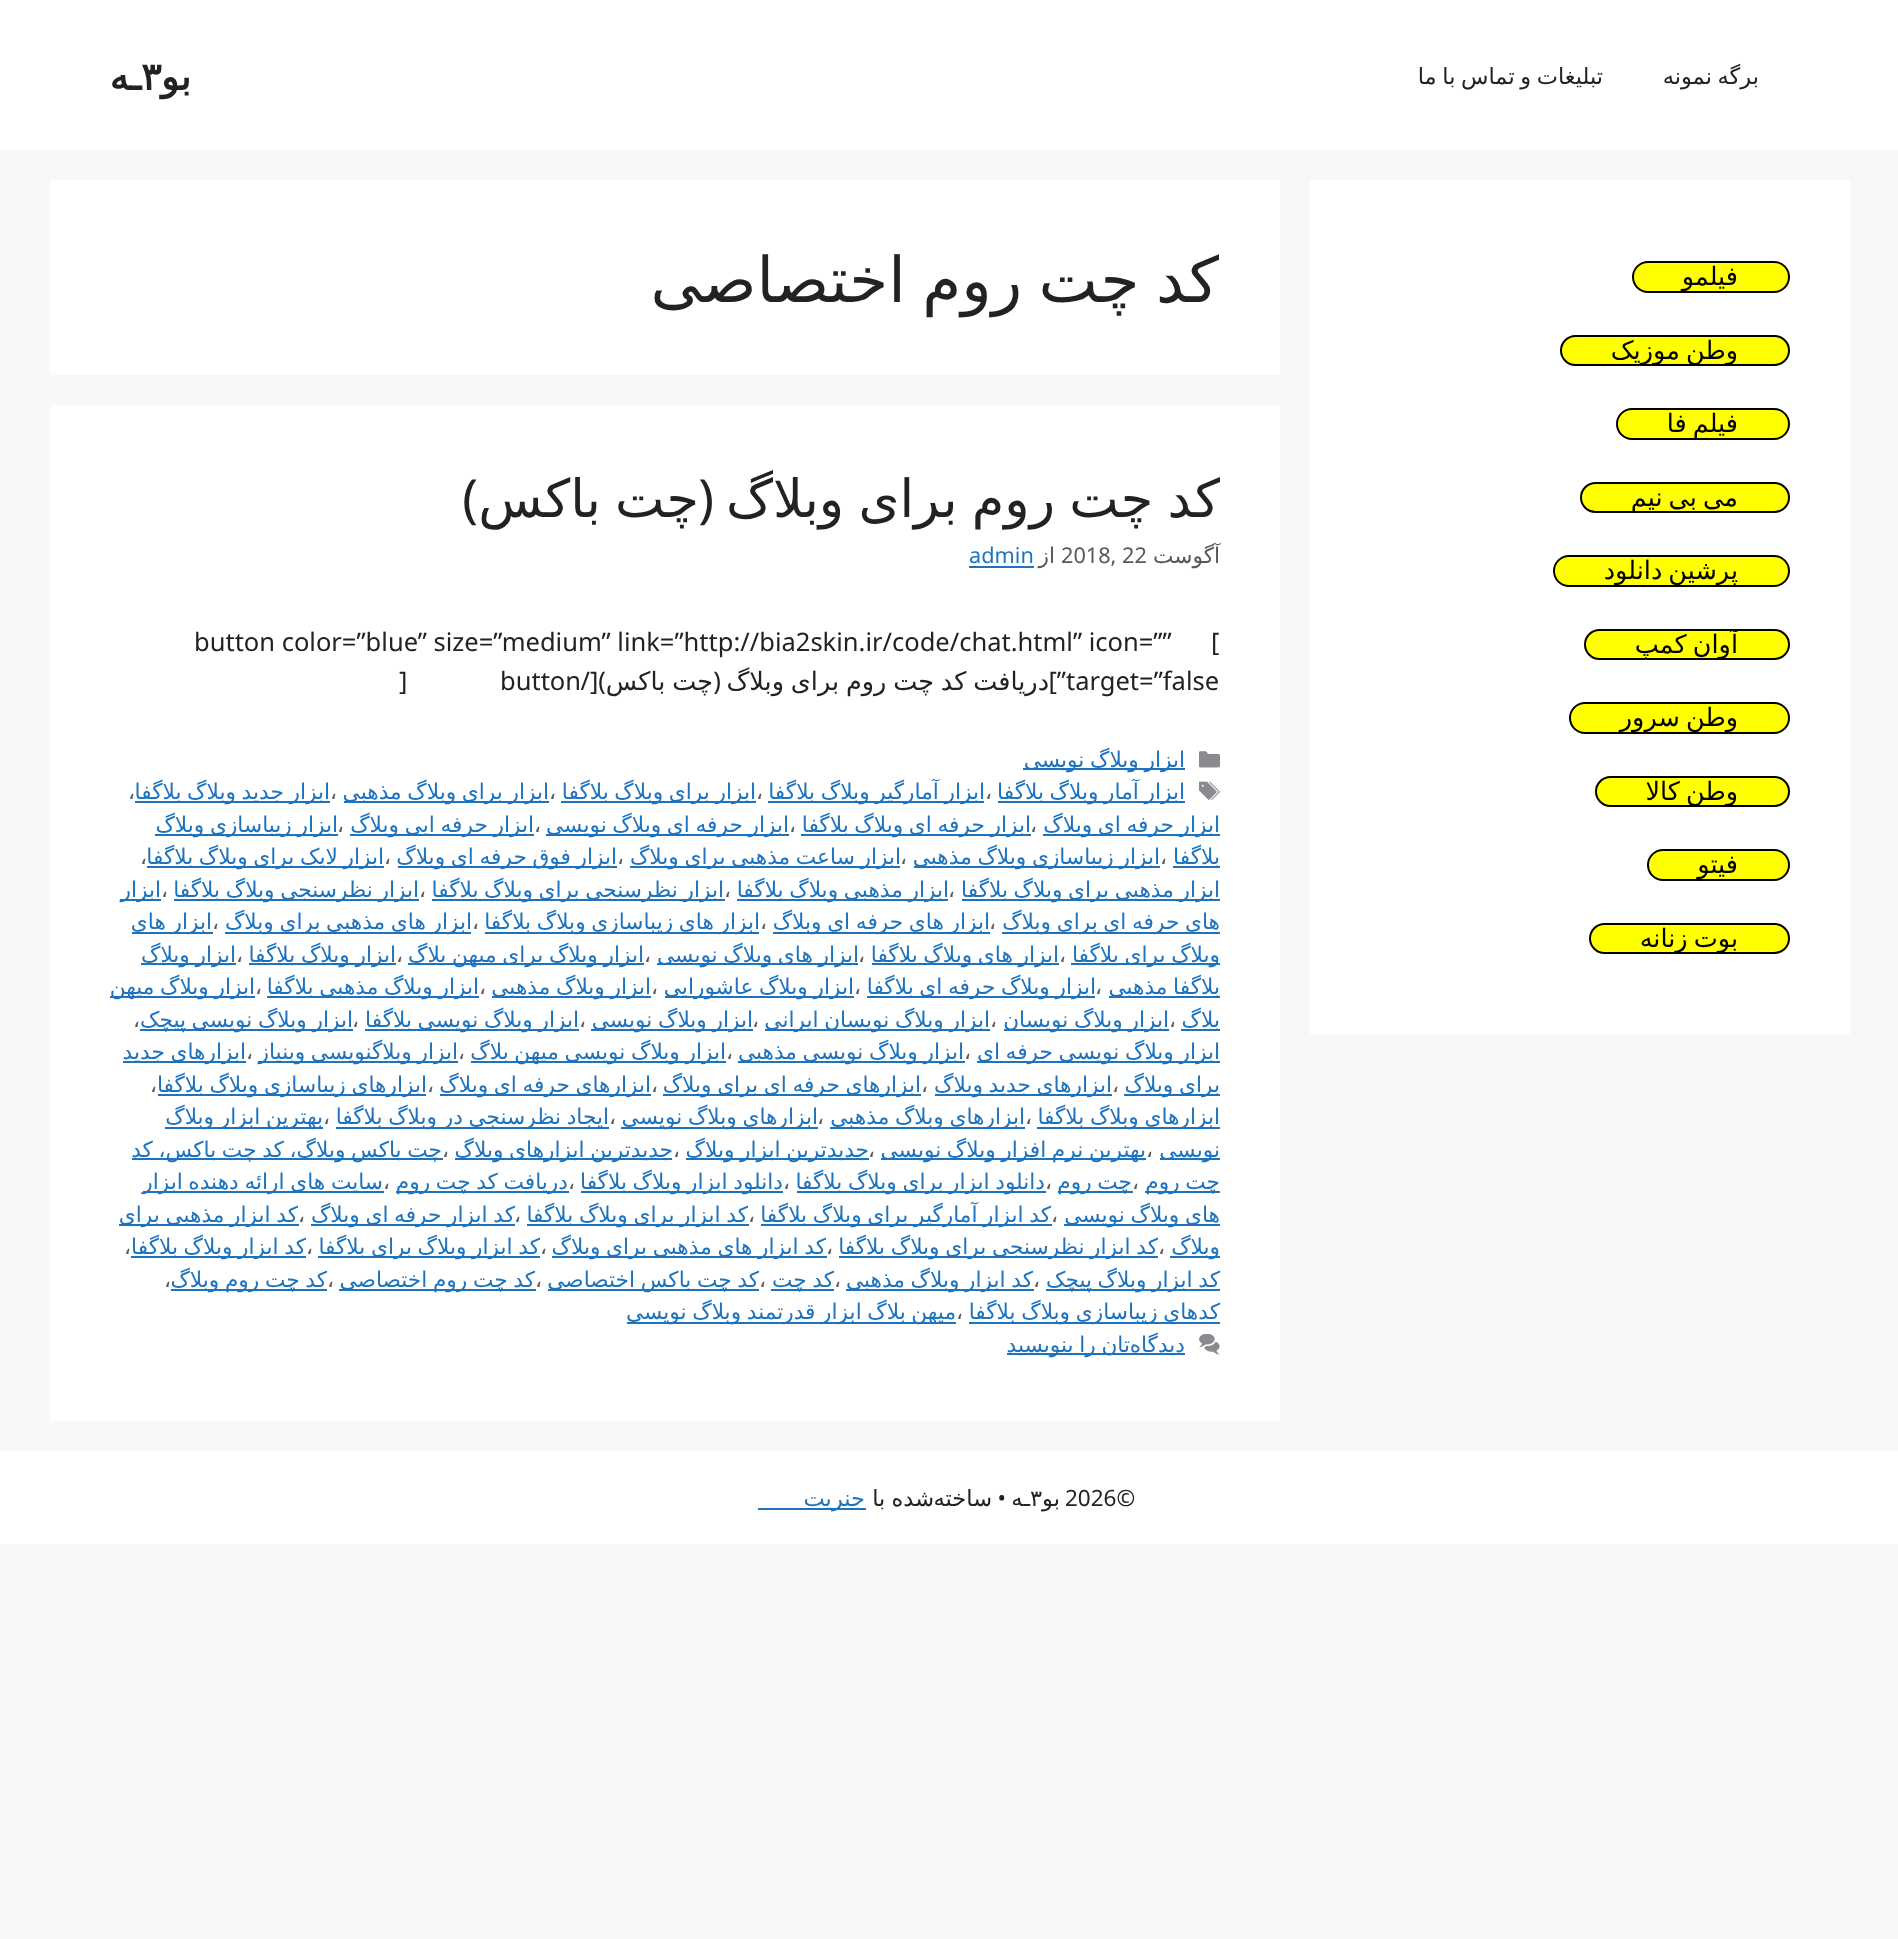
<svg xmlns="http://www.w3.org/2000/svg" width="1898" height="1939">
<rect width="100%" height="100%" fill="#f7f8f9"/>
<rect width="1898" height="150" fill="#fff"/>
<text x="1759" y="84" word-spacing="-1.5" style="font-family:DejaVu Sans;font-size:22.5px;direction:rtl;fill:#222">برگه نمونه</text>
<text x="1603" y="84" word-spacing="-1.5" style="font-family:DejaVu Sans;font-size:22.5px;direction:rtl;fill:#222">تبلیغات و تماس با ما</text>
<text x="141" y="90" style="font-family:DejaVu Sans;font-size:38px;font-weight:bold;fill:#222">۳</text>
<text x="191" y="90" style="font-family:DejaVu Sans;font-size:38px;font-weight:bold;direction:rtl;fill:#222">بو</text>
<text x="141" y="90" style="font-family:DejaVu Sans;font-size:38px;font-weight:bold;direction:rtl;fill:#222">ـه</text>
<rect x="1310" y="180" width="540" height="855" fill="#fff"/>
<rect x="1633" y="262" width="156" height="30" rx="15" fill="#ff0" stroke="#000" stroke-width="2"/>
<text x="1738" y="285" style="font-family:DejaVu Sans;font-size:25.5px;direction:rtl;fill:#000">فیلمو</text>
<rect x="1561" y="336" width="228" height="29" rx="14.5" fill="#ff0" stroke="#000" stroke-width="2"/>
<text x="1738" y="359" word-spacing="-2" style="font-family:DejaVu Sans;font-size:25.5px;direction:rtl;fill:#000">وطن موزیک</text>
<rect x="1617" y="409" width="172" height="30" rx="15" fill="#ff0" stroke="#000" stroke-width="2"/>
<text x="1738" y="432" word-spacing="-2" style="font-family:DejaVu Sans;font-size:25.5px;direction:rtl;fill:#000">فیلم فا</text>
<rect x="1581" y="483" width="208" height="29" rx="14.5" fill="#ff0" stroke="#000" stroke-width="2"/>
<text x="1738" y="506" word-spacing="-2" style="font-family:DejaVu Sans;font-size:25.5px;direction:rtl;fill:#000">می بی نیم</text>
<rect x="1554" y="556" width="235" height="30" rx="15" fill="#ff0" stroke="#000" stroke-width="2"/>
<text x="1738" y="579" word-spacing="-2" style="font-family:DejaVu Sans;font-size:25.5px;direction:rtl;fill:#000">پرشین دانلود</text>
<rect x="1585" y="630" width="204" height="29" rx="14.5" fill="#ff0" stroke="#000" stroke-width="2"/>
<text x="1738" y="653" word-spacing="-2" style="font-family:DejaVu Sans;font-size:25.5px;direction:rtl;fill:#000">آوان کمپ</text>
<rect x="1570" y="703" width="219" height="30" rx="15" fill="#ff0" stroke="#000" stroke-width="2"/>
<text x="1738" y="726" word-spacing="-2" style="font-family:DejaVu Sans;font-size:25.5px;direction:rtl;fill:#000">وطن سرور</text>
<rect x="1596" y="777" width="193" height="29" rx="14.5" fill="#ff0" stroke="#000" stroke-width="2"/>
<text x="1738" y="800" word-spacing="-2" style="font-family:DejaVu Sans;font-size:25.5px;direction:rtl;fill:#000">وطن کالا</text>
<rect x="1648" y="850" width="141" height="30" rx="15" fill="#ff0" stroke="#000" stroke-width="2"/>
<text x="1738" y="873" style="font-family:DejaVu Sans;font-size:25.5px;direction:rtl;fill:#000">فیتو</text>
<rect x="1590" y="924" width="199" height="29" rx="14.5" fill="#ff0" stroke="#000" stroke-width="2"/>
<text x="1738" y="947" word-spacing="-2" style="font-family:DejaVu Sans;font-size:25.5px;direction:rtl;fill:#000">بوت زنانه</text>
<rect x="50" y="180" width="1230" height="195" fill="#fff"/>
<text x="1219" y="302" word-spacing="-3.5" style="font-family:DejaVu Sans;font-size:63px;direction:rtl;fill:#222">کد چت روم اختصاصی</text>
<rect x="50" y="405" width="1230" height="1016" fill="#fff"/>
<text x="1220" y="517" word-spacing="-2.5" style="font-family:DejaVu Sans;font-size:52.5px;direction:rtl;fill:#222">کد چت روم برای وبلاگ</text>
<text x="714" y="517" style="font-family:Noto Sans;font-size:52.5px;direction:rtl;fill:#222">(</text>
<text x="699" y="517" word-spacing="-2.5" style="font-family:DejaVu Sans;font-size:52.5px;direction:rtl;fill:#222">چت باکس</text>
<text x="478" y="517" style="font-family:Noto Sans;font-size:52.5px;direction:rtl;fill:#222">)</text>
<text x="1220" y="563" style="font-family:DejaVu Sans;font-size:21.7px;direction:rtl;fill:#575760">آگوست</text>
<text x="1061" y="563" style="font-family:Noto Sans;font-size:21.7px;fill:#575760">2018, 22</text>
<text x="1055" y="563" style="font-family:DejaVu Sans;font-size:21.7px;direction:rtl;fill:#575760">از</text>
<rect x="969" y="566" width="65" height="2" fill="#1e73be"/>
<text x="969" y="563" style="font-family:Noto Sans;font-size:21.7px;fill:#1e73be">admin</text>
<text x="1211" y="651" style="font-family:Noto Sans;font-size:25.5px;fill:#222">[</text>
<text x="194" y="651" style="font-family:Noto Sans;font-size:25.5px;fill:#222">button color=”blue” size=”medium” link=”http://bia2skin.ir/code/chat.html” icon=””</text>
<text x="1066" y="690" style="font-family:Noto Sans;font-size:25.5px;fill:#222">target=”false</text>
<text x="1066" y="690" style="font-family:Noto Sans;font-size:25.5px;direction:rtl;fill:#222">”]</text>
<text x="1049" y="690" word-spacing="-1.25" style="font-family:DejaVu Sans;font-size:25.5px;direction:rtl;fill:#222">دریافت کد چت روم برای وبلاگ</text>
<text x="721" y="690" style="font-family:Noto Sans;font-size:25.5px;direction:rtl;fill:#222">(</text>
<text x="713" y="690" word-spacing="-1.25" style="font-family:DejaVu Sans;font-size:25.5px;direction:rtl;fill:#222">چت باکس</text>
<text x="606" y="690" style="font-family:Noto Sans;font-size:25.5px;direction:rtl;fill:#222">)[/</text>
<text x="500" y="690" style="font-family:Noto Sans;font-size:25.5px;fill:#222">button</text>
<text x="399" y="690" style="font-family:Noto Sans;font-size:25.5px;fill:#222">]</text>
<image x="1199" y="751" width="21" height="17" href="media/1.png"/>
<rect x="1023" y="768" width="162" height="2" fill="#1e73be"/>
<text x="1185" y="767" word-spacing="-1.25" style="font-family:DejaVu Sans;font-size:21.7px;direction:rtl;fill:#1e73be">ابزار وبلاگ نویسی</text>
<image x="1199" y="781" width="21" height="19" href="media/2.png"/>
<rect x="998" y="801" width="187" height="2" fill="#1e73be"/>
<text x="1185" y="799" word-spacing="-1.25" style="font-family:DejaVu Sans;font-size:21.7px;direction:rtl;fill:#1e73be">ابزار آمار وبلاگ بلاگفا</text>
<text x="985" y="799" style="font-family:DejaVu Sans;font-size:21.7px;fill:#575760">،</text>
<rect x="768" y="801" width="216" height="2" fill="#1e73be"/>
<text x="985" y="799" word-spacing="-1.25" style="font-family:DejaVu Sans;font-size:21.7px;direction:rtl;fill:#1e73be">ابزار آمارگیر وبلاگ بلاگفا</text>
<text x="756" y="799" style="font-family:DejaVu Sans;font-size:21.7px;fill:#575760">،</text>
<rect x="561" y="801" width="195" height="2" fill="#1e73be"/>
<text x="756" y="799" word-spacing="-1.25" style="font-family:DejaVu Sans;font-size:21.7px;direction:rtl;fill:#1e73be">ابزار برای وبلاگ بلاگفا</text>
<text x="549" y="799" style="font-family:DejaVu Sans;font-size:21.7px;fill:#575760">،</text>
<rect x="344" y="801" width="205" height="2" fill="#1e73be"/>
<text x="549" y="799" word-spacing="-1.25" style="font-family:DejaVu Sans;font-size:21.7px;direction:rtl;fill:#1e73be">ابزار برای وبلاگ مذهبی</text>
<text x="330" y="799" style="font-family:DejaVu Sans;font-size:21.7px;fill:#575760">،</text>
<rect x="135" y="801" width="195" height="2" fill="#1e73be"/>
<text x="330" y="799" word-spacing="-1.25" style="font-family:DejaVu Sans;font-size:21.7px;direction:rtl;fill:#1e73be">ابزار جدید وبلاگ بلاگفا</text>
<text x="128" y="799" style="font-family:DejaVu Sans;font-size:21.7px;fill:#575760">،</text>
<rect x="1043" y="834" width="177" height="2" fill="#1e73be"/>
<text x="1220" y="832" word-spacing="-1.25" style="font-family:DejaVu Sans;font-size:21.7px;direction:rtl;fill:#1e73be">ابزار حرفه ای وبلاگ</text>
<text x="1030" y="832" style="font-family:DejaVu Sans;font-size:21.7px;fill:#575760">،</text>
<rect x="801" y="834" width="230" height="2" fill="#1e73be"/>
<text x="1031" y="832" word-spacing="-1.25" style="font-family:DejaVu Sans;font-size:21.7px;direction:rtl;fill:#1e73be">ابزار حرفه ای وبلاگ بلاگفا</text>
<text x="789" y="832" style="font-family:DejaVu Sans;font-size:21.7px;fill:#575760">،</text>
<rect x="546" y="834" width="243" height="2" fill="#1e73be"/>
<text x="789" y="832" word-spacing="-1.25" style="font-family:DejaVu Sans;font-size:21.7px;direction:rtl;fill:#1e73be">ابزار حرفه ای وبلاگ نویسی</text>
<text x="534" y="832" style="font-family:DejaVu Sans;font-size:21.7px;fill:#575760">،</text>
<rect x="350" y="834" width="184" height="2" fill="#1e73be"/>
<text x="534" y="832" word-spacing="-1.25" style="font-family:DejaVu Sans;font-size:21.7px;direction:rtl;fill:#1e73be">ابزار حرفه ایی وبلاگ</text>
<text x="337" y="832" style="font-family:DejaVu Sans;font-size:21.7px;fill:#575760">،</text>
<rect x="155" y="834" width="183" height="2" fill="#1e73be"/>
<text x="338" y="832" word-spacing="-1.25" style="font-family:DejaVu Sans;font-size:21.7px;direction:rtl;fill:#1e73be">ابزار زیباسازی وبلاگ</text>
<rect x="1173" y="866" width="47" height="2" fill="#1e73be"/>
<text x="1220" y="864" style="font-family:DejaVu Sans;font-size:21.7px;direction:rtl;fill:#1e73be">بلاگفا</text>
<text x="1160" y="864" style="font-family:DejaVu Sans;font-size:21.7px;fill:#575760">،</text>
<rect x="914" y="866" width="246" height="2" fill="#1e73be"/>
<text x="1160" y="864" word-spacing="-1.25" style="font-family:DejaVu Sans;font-size:21.7px;direction:rtl;fill:#1e73be">ابزار زیباسازی وبلاگ مذهبی</text>
<text x="900" y="864" style="font-family:DejaVu Sans;font-size:21.7px;fill:#575760">،</text>
<rect x="630" y="866" width="270" height="2" fill="#1e73be"/>
<text x="901" y="864" word-spacing="-1.25" style="font-family:DejaVu Sans;font-size:21.7px;direction:rtl;fill:#1e73be">ابزار ساعت مذهبی برای وبلاگ</text>
<text x="617" y="864" style="font-family:DejaVu Sans;font-size:21.7px;fill:#575760">،</text>
<rect x="398" y="866" width="219" height="2" fill="#1e73be"/>
<text x="617" y="864" word-spacing="-1.25" style="font-family:DejaVu Sans;font-size:21.7px;direction:rtl;fill:#1e73be">ابزار فوق حرفه ای وبلاگ</text>
<text x="384" y="864" style="font-family:DejaVu Sans;font-size:21.7px;fill:#575760">،</text>
<rect x="147" y="866" width="237" height="2" fill="#1e73be"/>
<text x="384" y="864" word-spacing="-1.25" style="font-family:DejaVu Sans;font-size:21.7px;direction:rtl;fill:#1e73be">ابزار لایک برای وبلاگ بلاگفا</text>
<text x="140" y="864" style="font-family:DejaVu Sans;font-size:21.7px;fill:#575760">،</text>
<rect x="962" y="899" width="258" height="2" fill="#1e73be"/>
<text x="1220" y="897" word-spacing="-1.25" style="font-family:DejaVu Sans;font-size:21.7px;direction:rtl;fill:#1e73be">ابزار مذهبی برای وبلاگ بلاگفا</text>
<text x="948" y="897" style="font-family:DejaVu Sans;font-size:21.7px;fill:#575760">،</text>
<rect x="737" y="899" width="211" height="2" fill="#1e73be"/>
<text x="949" y="897" word-spacing="-1.25" style="font-family:DejaVu Sans;font-size:21.7px;direction:rtl;fill:#1e73be">ابزار مذهبی وبلاگ بلاگفا</text>
<text x="724" y="897" style="font-family:DejaVu Sans;font-size:21.7px;fill:#575760">،</text>
<rect x="432" y="899" width="293" height="2" fill="#1e73be"/>
<text x="724" y="897" word-spacing="-1.25" style="font-family:DejaVu Sans;font-size:21.7px;direction:rtl;fill:#1e73be">ابزار نظرسنجی برای وبلاگ بلاگفا</text>
<text x="419" y="897" style="font-family:DejaVu Sans;font-size:21.7px;fill:#575760">،</text>
<rect x="174" y="899" width="245" height="2" fill="#1e73be"/>
<text x="419" y="897" word-spacing="-1.25" style="font-family:DejaVu Sans;font-size:21.7px;direction:rtl;fill:#1e73be">ابزار نظرسنجی وبلاگ بلاگفا</text>
<text x="161" y="897" style="font-family:DejaVu Sans;font-size:21.7px;fill:#575760">،</text>
<rect x="120" y="899" width="41" height="2" fill="#1e73be"/>
<text x="161" y="897" style="font-family:DejaVu Sans;font-size:21.7px;direction:rtl;fill:#1e73be">ابزار</text>
<rect x="1002" y="932" width="218" height="2" fill="#1e73be"/>
<text x="1220" y="929" word-spacing="-1.25" style="font-family:DejaVu Sans;font-size:21.7px;direction:rtl;fill:#1e73be">های حرفه ای برای وبلاگ</text>
<text x="989" y="929" style="font-family:DejaVu Sans;font-size:21.7px;fill:#575760">،</text>
<rect x="773" y="932" width="217" height="2" fill="#1e73be"/>
<text x="990" y="929" word-spacing="-1.25" style="font-family:DejaVu Sans;font-size:21.7px;direction:rtl;fill:#1e73be">ابزار های حرفه ای وبلاگ</text>
<text x="760" y="929" style="font-family:DejaVu Sans;font-size:21.7px;fill:#575760">،</text>
<rect x="485" y="932" width="274" height="2" fill="#1e73be"/>
<text x="760" y="929" word-spacing="-1.25" style="font-family:DejaVu Sans;font-size:21.7px;direction:rtl;fill:#1e73be">ابزار های زیباسازی وبلاگ بلاگفا</text>
<text x="472" y="929" style="font-family:DejaVu Sans;font-size:21.7px;fill:#575760">،</text>
<rect x="225" y="932" width="246" height="2" fill="#1e73be"/>
<text x="472" y="929" word-spacing="-1.25" style="font-family:DejaVu Sans;font-size:21.7px;direction:rtl;fill:#1e73be">ابزار های مذهبی برای وبلاگ</text>
<text x="212" y="929" style="font-family:DejaVu Sans;font-size:21.7px;fill:#575760">،</text>
<rect x="132" y="932" width="81" height="2" fill="#1e73be"/>
<text x="212" y="929" word-spacing="-1.25" style="font-family:DejaVu Sans;font-size:21.7px;direction:rtl;fill:#1e73be">ابزار های</text>
<rect x="1071" y="963" width="149" height="2" fill="#1e73be"/>
<text x="1220" y="962" word-spacing="-1.25" style="font-family:DejaVu Sans;font-size:21.7px;direction:rtl;fill:#1e73be">وبلاگ برای بلاگفا</text>
<text x="1059" y="962" style="font-family:DejaVu Sans;font-size:21.7px;fill:#575760">،</text>
<rect x="872" y="963" width="187" height="2" fill="#1e73be"/>
<text x="1059" y="962" word-spacing="-1.25" style="font-family:DejaVu Sans;font-size:21.7px;direction:rtl;fill:#1e73be">ابزار های وبلاگ بلاگفا</text>
<text x="858" y="962" style="font-family:DejaVu Sans;font-size:21.7px;fill:#575760">،</text>
<rect x="657" y="963" width="201" height="2" fill="#1e73be"/>
<text x="859" y="962" word-spacing="-1.25" style="font-family:DejaVu Sans;font-size:21.7px;direction:rtl;fill:#1e73be">ابزار های وبلاگ نویسی</text>
<text x="644" y="962" style="font-family:DejaVu Sans;font-size:21.7px;fill:#575760">،</text>
<rect x="408" y="963" width="236" height="2" fill="#1e73be"/>
<text x="644" y="962" word-spacing="-1.25" style="font-family:DejaVu Sans;font-size:21.7px;direction:rtl;fill:#1e73be">ابزار وبلاگ برای میهن بلاگ</text>
<text x="396" y="962" style="font-family:DejaVu Sans;font-size:21.7px;fill:#575760">،</text>
<rect x="249" y="963" width="147" height="2" fill="#1e73be"/>
<text x="396" y="962" word-spacing="-1.25" style="font-family:DejaVu Sans;font-size:21.7px;direction:rtl;fill:#1e73be">ابزار وبلاگ بلاگفا</text>
<text x="236" y="962" style="font-family:DejaVu Sans;font-size:21.7px;fill:#575760">،</text>
<rect x="141" y="963" width="95" height="2" fill="#1e73be"/>
<text x="236" y="962" word-spacing="-1.25" style="font-family:DejaVu Sans;font-size:21.7px;direction:rtl;fill:#1e73be">ابزار وبلاگ</text>
<rect x="1109" y="996" width="111" height="2" fill="#1e73be"/>
<text x="1220" y="994" word-spacing="-1.25" style="font-family:DejaVu Sans;font-size:21.7px;direction:rtl;fill:#1e73be">بلاگفا مذهبی</text>
<text x="1095" y="994" style="font-family:DejaVu Sans;font-size:21.7px;fill:#575760">،</text>
<rect x="867" y="996" width="228" height="2" fill="#1e73be"/>
<text x="1096" y="994" word-spacing="-1.25" style="font-family:DejaVu Sans;font-size:21.7px;direction:rtl;fill:#1e73be">ابزار وبلاگ حرفه ای بلاگفا</text>
<text x="854" y="994" style="font-family:DejaVu Sans;font-size:21.7px;fill:#575760">،</text>
<rect x="665" y="996" width="189" height="2" fill="#1e73be"/>
<text x="854" y="994" word-spacing="-1.25" style="font-family:DejaVu Sans;font-size:21.7px;direction:rtl;fill:#1e73be">ابزار وبلاگ عاشورایی</text>
<text x="651" y="994" style="font-family:DejaVu Sans;font-size:21.7px;fill:#575760">،</text>
<rect x="492" y="996" width="159" height="2" fill="#1e73be"/>
<text x="651" y="994" word-spacing="-1.25" style="font-family:DejaVu Sans;font-size:21.7px;direction:rtl;fill:#1e73be">ابزار وبلاگ مذهبی</text>
<text x="479" y="994" style="font-family:DejaVu Sans;font-size:21.7px;fill:#575760">،</text>
<rect x="267" y="996" width="212" height="2" fill="#1e73be"/>
<text x="479" y="994" word-spacing="-1.25" style="font-family:DejaVu Sans;font-size:21.7px;direction:rtl;fill:#1e73be">ابزار وبلاگ مذهبی بلاگفا</text>
<text x="255" y="994" style="font-family:DejaVu Sans;font-size:21.7px;fill:#575760">،</text>
<rect x="110" y="996" width="145" height="2" fill="#1e73be"/>
<text x="255" y="994" word-spacing="-1.25" style="font-family:DejaVu Sans;font-size:21.7px;direction:rtl;fill:#1e73be">ابزار وبلاگ میهن</text>
<rect x="1181" y="1029" width="39" height="2" fill="#1e73be"/>
<text x="1220" y="1027" style="font-family:DejaVu Sans;font-size:21.7px;direction:rtl;fill:#1e73be">بلاگ</text>
<text x="1169" y="1027" style="font-family:DejaVu Sans;font-size:21.7px;fill:#575760">،</text>
<rect x="1004" y="1029" width="165" height="2" fill="#1e73be"/>
<text x="1169" y="1027" word-spacing="-1.25" style="font-family:DejaVu Sans;font-size:21.7px;direction:rtl;fill:#1e73be">ابزار وبلاگ نویسان</text>
<text x="990" y="1027" style="font-family:DejaVu Sans;font-size:21.7px;fill:#575760">،</text>
<rect x="765" y="1029" width="225" height="2" fill="#1e73be"/>
<text x="990" y="1027" word-spacing="-1.25" style="font-family:DejaVu Sans;font-size:21.7px;direction:rtl;fill:#1e73be">ابزار وبلاگ نویسان ایرانی</text>
<text x="752" y="1027" style="font-family:DejaVu Sans;font-size:21.7px;fill:#575760">،</text>
<rect x="591" y="1029" width="162" height="2" fill="#1e73be"/>
<text x="753" y="1027" word-spacing="-1.25" style="font-family:DejaVu Sans;font-size:21.7px;direction:rtl;fill:#1e73be">ابزار وبلاگ نویسی</text>
<text x="579" y="1027" style="font-family:DejaVu Sans;font-size:21.7px;fill:#575760">،</text>
<rect x="365" y="1029" width="214" height="2" fill="#1e73be"/>
<text x="579" y="1027" word-spacing="-1.25" style="font-family:DejaVu Sans;font-size:21.7px;direction:rtl;fill:#1e73be">ابزار وبلاگ نویسی بلاگفا</text>
<text x="352" y="1027" style="font-family:DejaVu Sans;font-size:21.7px;fill:#575760">،</text>
<rect x="140" y="1029" width="213" height="2" fill="#1e73be"/>
<text x="353" y="1027" word-spacing="-1.25" style="font-family:DejaVu Sans;font-size:21.7px;direction:rtl;fill:#1e73be">ابزار وبلاگ نویسی پیچک</text>
<text x="133" y="1027" style="font-family:DejaVu Sans;font-size:21.7px;fill:#575760">،</text>
<rect x="977" y="1061" width="243" height="2" fill="#1e73be"/>
<text x="1220" y="1059" word-spacing="-1.25" style="font-family:DejaVu Sans;font-size:21.7px;direction:rtl;fill:#1e73be">ابزار وبلاگ نویسی حرفه ای</text>
<text x="964" y="1059" style="font-family:DejaVu Sans;font-size:21.7px;fill:#575760">،</text>
<rect x="738" y="1061" width="227" height="2" fill="#1e73be"/>
<text x="964" y="1059" word-spacing="-1.25" style="font-family:DejaVu Sans;font-size:21.7px;direction:rtl;fill:#1e73be">ابزار وبلاگ نویسی مذهبی</text>
<text x="726" y="1059" style="font-family:DejaVu Sans;font-size:21.7px;fill:#575760">،</text>
<rect x="471" y="1061" width="255" height="2" fill="#1e73be"/>
<text x="726" y="1059" word-spacing="-1.25" style="font-family:DejaVu Sans;font-size:21.7px;direction:rtl;fill:#1e73be">ابزار وبلاگ نویسی میهن بلاگ</text>
<text x="458" y="1059" style="font-family:DejaVu Sans;font-size:21.7px;fill:#575760">،</text>
<rect x="258" y="1061" width="200" height="2" fill="#1e73be"/>
<text x="458" y="1059" word-spacing="-1.25" style="font-family:DejaVu Sans;font-size:21.7px;direction:rtl;fill:#1e73be">ابزار وبلاگنویسی وبنیاز</text>
<text x="246" y="1059" style="font-family:DejaVu Sans;font-size:21.7px;fill:#575760">،</text>
<rect x="123" y="1061" width="123" height="2" fill="#1e73be"/>
<text x="246" y="1059" word-spacing="-1.25" style="font-family:DejaVu Sans;font-size:21.7px;direction:rtl;fill:#1e73be">ابزارهای جدید</text>
<rect x="1124" y="1094" width="96" height="2" fill="#1e73be"/>
<text x="1220" y="1092" word-spacing="-1.25" style="font-family:DejaVu Sans;font-size:21.7px;direction:rtl;fill:#1e73be">برای وبلاگ</text>
<text x="1112" y="1092" style="font-family:DejaVu Sans;font-size:21.7px;fill:#575760">،</text>
<rect x="935" y="1094" width="177" height="2" fill="#1e73be"/>
<text x="1112" y="1092" word-spacing="-1.25" style="font-family:DejaVu Sans;font-size:21.7px;direction:rtl;fill:#1e73be">ابزارهای جدید وبلاگ</text>
<text x="921" y="1092" style="font-family:DejaVu Sans;font-size:21.7px;fill:#575760">،</text>
<rect x="663" y="1094" width="258" height="2" fill="#1e73be"/>
<text x="921" y="1092" word-spacing="-1.25" style="font-family:DejaVu Sans;font-size:21.7px;direction:rtl;fill:#1e73be">ابزارهای حرفه ای برای وبلاگ</text>
<text x="651" y="1092" style="font-family:DejaVu Sans;font-size:21.7px;fill:#575760">،</text>
<rect x="440" y="1094" width="211" height="2" fill="#1e73be"/>
<text x="651" y="1092" word-spacing="-1.25" style="font-family:DejaVu Sans;font-size:21.7px;direction:rtl;fill:#1e73be">ابزارهای حرفه ای وبلاگ</text>
<text x="427" y="1092" style="font-family:DejaVu Sans;font-size:21.7px;fill:#575760">،</text>
<rect x="158" y="1094" width="268" height="2" fill="#1e73be"/>
<text x="427" y="1092" word-spacing="-1.25" style="font-family:DejaVu Sans;font-size:21.7px;direction:rtl;fill:#1e73be">ابزارهای زیباسازی وبلاگ بلاگفا</text>
<text x="150" y="1092" style="font-family:DejaVu Sans;font-size:21.7px;fill:#575760">،</text>
<rect x="1037" y="1127" width="183" height="2" fill="#1e73be"/>
<text x="1220" y="1124" word-spacing="-1.25" style="font-family:DejaVu Sans;font-size:21.7px;direction:rtl;fill:#1e73be">ابزارهای وبلاگ بلاگفا</text>
<text x="1025" y="1124" style="font-family:DejaVu Sans;font-size:21.7px;fill:#575760">،</text>
<rect x="830" y="1127" width="195" height="2" fill="#1e73be"/>
<text x="1025" y="1124" word-spacing="-1.25" style="font-family:DejaVu Sans;font-size:21.7px;direction:rtl;fill:#1e73be">ابزارهای وبلاگ مذهبی</text>
<text x="817" y="1124" style="font-family:DejaVu Sans;font-size:21.7px;fill:#575760">،</text>
<rect x="621" y="1127" width="197" height="2" fill="#1e73be"/>
<text x="818" y="1124" word-spacing="-1.25" style="font-family:DejaVu Sans;font-size:21.7px;direction:rtl;fill:#1e73be">ابزارهای وبلاگ نویسی</text>
<text x="609" y="1124" style="font-family:DejaVu Sans;font-size:21.7px;fill:#575760">،</text>
<rect x="336" y="1127" width="273" height="2" fill="#1e73be"/>
<text x="609" y="1124" word-spacing="-1.25" style="font-family:DejaVu Sans;font-size:21.7px;direction:rtl;fill:#1e73be">ایجاد نظرسنجی در وبلاگ بلاگفا</text>
<text x="323" y="1124" style="font-family:DejaVu Sans;font-size:21.7px;fill:#575760">،</text>
<rect x="165" y="1127" width="158" height="2" fill="#1e73be"/>
<text x="323" y="1124" word-spacing="-1.25" style="font-family:DejaVu Sans;font-size:21.7px;direction:rtl;fill:#1e73be">بهترین ابزار وبلاگ</text>
<rect x="1160" y="1158" width="60" height="2" fill="#1e73be"/>
<text x="1220" y="1157" style="font-family:DejaVu Sans;font-size:21.7px;direction:rtl;fill:#1e73be">نویسی</text>
<text x="1146" y="1157" style="font-family:DejaVu Sans;font-size:21.7px;fill:#575760">،</text>
<rect x="881" y="1158" width="265" height="2" fill="#1e73be"/>
<text x="1146" y="1157" word-spacing="-1.25" style="font-family:DejaVu Sans;font-size:21.7px;direction:rtl;fill:#1e73be">بهترین نرم افزار وبلاگ نویسی</text>
<text x="868" y="1157" style="font-family:DejaVu Sans;font-size:21.7px;fill:#575760">،</text>
<rect x="686" y="1158" width="183" height="2" fill="#1e73be"/>
<text x="869" y="1157" word-spacing="-1.25" style="font-family:DejaVu Sans;font-size:21.7px;direction:rtl;fill:#1e73be">جدیدترین ابزار وبلاگ</text>
<text x="673" y="1157" style="font-family:DejaVu Sans;font-size:21.7px;fill:#575760">،</text>
<rect x="455" y="1158" width="217" height="2" fill="#1e73be"/>
<text x="673" y="1157" word-spacing="-1.25" style="font-family:DejaVu Sans;font-size:21.7px;direction:rtl;fill:#1e73be">جدیدترین ابزارهای وبلاگ</text>
<text x="442" y="1157" style="font-family:DejaVu Sans;font-size:21.7px;fill:#575760">،</text>
<rect x="132" y="1158" width="311" height="2" fill="#1e73be"/>
<text x="442" y="1157" word-spacing="-1.25" style="font-family:DejaVu Sans;font-size:21.7px;direction:rtl;fill:#1e73be">چت باکس وبلاگ، کد چت باکس، کد</text>
<rect x="1145" y="1191" width="75" height="2" fill="#1e73be"/>
<text x="1220" y="1189" word-spacing="-1.25" style="font-family:DejaVu Sans;font-size:21.7px;direction:rtl;fill:#1e73be">چت روم</text>
<text x="1132" y="1189" style="font-family:DejaVu Sans;font-size:21.7px;fill:#575760">،</text>
<rect x="1058" y="1191" width="75" height="2" fill="#1e73be"/>
<text x="1132" y="1189" word-spacing="-1.25" style="font-family:DejaVu Sans;font-size:21.7px;direction:rtl;fill:#1e73be">چت روم</text>
<text x="1045" y="1189" style="font-family:DejaVu Sans;font-size:21.7px;fill:#575760">،</text>
<rect x="797" y="1191" width="249" height="2" fill="#1e73be"/>
<text x="1045" y="1189" word-spacing="-1.25" style="font-family:DejaVu Sans;font-size:21.7px;direction:rtl;fill:#1e73be">دانلود ابزار برای وبلاگ بلاگفا</text>
<text x="783" y="1189" style="font-family:DejaVu Sans;font-size:21.7px;fill:#575760">،</text>
<rect x="581" y="1191" width="202" height="2" fill="#1e73be"/>
<text x="783" y="1189" word-spacing="-1.25" style="font-family:DejaVu Sans;font-size:21.7px;direction:rtl;fill:#1e73be">دانلود ابزار وبلاگ بلاگفا</text>
<text x="568" y="1189" style="font-family:DejaVu Sans;font-size:21.7px;fill:#575760">،</text>
<rect x="396" y="1191" width="173" height="2" fill="#1e73be"/>
<text x="568" y="1189" word-spacing="-1.25" style="font-family:DejaVu Sans;font-size:21.7px;direction:rtl;fill:#1e73be">دریافت کد چت روم</text>
<text x="383" y="1189" style="font-family:DejaVu Sans;font-size:21.7px;fill:#575760">،</text>
<rect x="143" y="1191" width="241" height="2" fill="#1e73be"/>
<text x="383" y="1189" word-spacing="-1.25" style="font-family:DejaVu Sans;font-size:21.7px;direction:rtl;fill:#1e73be">سایت های ارائه دهنده ابزار</text>
<rect x="1064" y="1224" width="156" height="2" fill="#1e73be"/>
<text x="1220" y="1222" word-spacing="-1.25" style="font-family:DejaVu Sans;font-size:21.7px;direction:rtl;fill:#1e73be">های وبلاگ نویسی</text>
<text x="1051" y="1222" style="font-family:DejaVu Sans;font-size:21.7px;fill:#575760">،</text>
<rect x="761" y="1224" width="291" height="2" fill="#1e73be"/>
<text x="1051" y="1222" word-spacing="-1.25" style="font-family:DejaVu Sans;font-size:21.7px;direction:rtl;fill:#1e73be">کد ابزار آمارگیر برای وبلاگ بلاگفا</text>
<text x="748" y="1222" style="font-family:DejaVu Sans;font-size:21.7px;fill:#575760">،</text>
<rect x="527" y="1224" width="222" height="2" fill="#1e73be"/>
<text x="748" y="1222" word-spacing="-1.25" style="font-family:DejaVu Sans;font-size:21.7px;direction:rtl;fill:#1e73be">کد ابزار برای وبلاگ بلاگفا</text>
<text x="514" y="1222" style="font-family:DejaVu Sans;font-size:21.7px;fill:#575760">،</text>
<rect x="311" y="1224" width="204" height="2" fill="#1e73be"/>
<text x="515" y="1222" word-spacing="-1.25" style="font-family:DejaVu Sans;font-size:21.7px;direction:rtl;fill:#1e73be">کد ابزار حرفه ای وبلاگ</text>
<text x="298" y="1222" style="font-family:DejaVu Sans;font-size:21.7px;fill:#575760">،</text>
<rect x="119" y="1224" width="180" height="2" fill="#1e73be"/>
<text x="298" y="1222" word-spacing="-1.25" style="font-family:DejaVu Sans;font-size:21.7px;direction:rtl;fill:#1e73be">کد ابزار مذهبی برای</text>
<rect x="1170" y="1256" width="50" height="2" fill="#1e73be"/>
<text x="1220" y="1254" style="font-family:DejaVu Sans;font-size:21.7px;direction:rtl;fill:#1e73be">وبلاگ</text>
<text x="1158" y="1254" style="font-family:DejaVu Sans;font-size:21.7px;fill:#575760">،</text>
<rect x="839" y="1256" width="319" height="2" fill="#1e73be"/>
<text x="1158" y="1254" word-spacing="-1.25" style="font-family:DejaVu Sans;font-size:21.7px;direction:rtl;fill:#1e73be">کد ابزار نظرسنجی برای وبلاگ بلاگفا</text>
<text x="826" y="1254" style="font-family:DejaVu Sans;font-size:21.7px;fill:#575760">،</text>
<rect x="552" y="1256" width="275" height="2" fill="#1e73be"/>
<text x="826" y="1254" word-spacing="-1.25" style="font-family:DejaVu Sans;font-size:21.7px;direction:rtl;fill:#1e73be">کد ابزار های مذهبی برای وبلاگ</text>
<text x="540" y="1254" style="font-family:DejaVu Sans;font-size:21.7px;fill:#575760">،</text>
<rect x="318" y="1256" width="222" height="2" fill="#1e73be"/>
<text x="540" y="1254" word-spacing="-1.25" style="font-family:DejaVu Sans;font-size:21.7px;direction:rtl;fill:#1e73be">کد ابزار وبلاگ برای بلاگفا</text>
<text x="306" y="1254" style="font-family:DejaVu Sans;font-size:21.7px;fill:#575760">،</text>
<rect x="131" y="1256" width="175" height="2" fill="#1e73be"/>
<text x="306" y="1254" word-spacing="-1.25" style="font-family:DejaVu Sans;font-size:21.7px;direction:rtl;fill:#1e73be">کد ابزار وبلاگ بلاگفا</text>
<text x="124" y="1254" style="font-family:DejaVu Sans;font-size:21.7px;fill:#575760">،</text>
<rect x="1046" y="1289" width="174" height="2" fill="#1e73be"/>
<text x="1220" y="1287" word-spacing="-1.25" style="font-family:DejaVu Sans;font-size:21.7px;direction:rtl;fill:#1e73be">کد ابزار وبلاگ پیچک</text>
<text x="1033" y="1287" style="font-family:DejaVu Sans;font-size:21.7px;fill:#575760">،</text>
<rect x="846" y="1289" width="188" height="2" fill="#1e73be"/>
<text x="1033" y="1287" word-spacing="-1.25" style="font-family:DejaVu Sans;font-size:21.7px;direction:rtl;fill:#1e73be">کد ابزار وبلاگ مذهبی</text>
<text x="834" y="1287" style="font-family:DejaVu Sans;font-size:21.7px;fill:#575760">،</text>
<rect x="771" y="1289" width="63" height="2" fill="#1e73be"/>
<text x="834" y="1287" word-spacing="-1.25" style="font-family:DejaVu Sans;font-size:21.7px;direction:rtl;fill:#1e73be">کد چت</text>
<text x="759" y="1287" style="font-family:DejaVu Sans;font-size:21.7px;fill:#575760">،</text>
<rect x="548" y="1289" width="211" height="2" fill="#1e73be"/>
<text x="759" y="1287" word-spacing="-1.25" style="font-family:DejaVu Sans;font-size:21.7px;direction:rtl;fill:#1e73be">کد چت باکس اختصاصی</text>
<text x="535" y="1287" style="font-family:DejaVu Sans;font-size:21.7px;fill:#575760">،</text>
<rect x="339" y="1289" width="197" height="2" fill="#1e73be"/>
<text x="535" y="1287" word-spacing="-1.25" style="font-family:DejaVu Sans;font-size:21.7px;direction:rtl;fill:#1e73be">کد چت روم اختصاصی</text>
<text x="327" y="1287" style="font-family:DejaVu Sans;font-size:21.7px;fill:#575760">،</text>
<rect x="171" y="1289" width="156" height="2" fill="#1e73be"/>
<text x="327" y="1287" word-spacing="-1.25" style="font-family:DejaVu Sans;font-size:21.7px;direction:rtl;fill:#1e73be">کد چت روم وبلاگ</text>
<text x="164" y="1287" style="font-family:DejaVu Sans;font-size:21.7px;fill:#575760">،</text>
<rect x="969" y="1322" width="251" height="2" fill="#1e73be"/>
<text x="1220" y="1319" word-spacing="-1.25" style="font-family:DejaVu Sans;font-size:21.7px;direction:rtl;fill:#1e73be">کدهای زیباسازی وبلاگ بلاگفا</text>
<text x="956" y="1319" style="font-family:DejaVu Sans;font-size:21.7px;fill:#575760">،</text>
<rect x="627" y="1322" width="329" height="2" fill="#1e73be"/>
<text x="956" y="1319" word-spacing="-1.25" style="font-family:DejaVu Sans;font-size:21.7px;direction:rtl;fill:#1e73be">میهن بلاگ ابزار قدرتمند وبلاگ نویسی</text>
<image x="1199" y="1334" width="21" height="21" href="media/3.png"/>
<rect x="1007" y="1353" width="178" height="2" fill="#1e73be"/>
<text x="1185" y="1352" style="font-family:DejaVu Sans;font-size:21.7px;direction:rtl;fill:#1e73be">دیدگاه</text>
<text x="1130" y="1352" word-spacing="-1.25" style="font-family:DejaVu Sans;font-size:21.7px;direction:rtl;fill:#1e73be">تان را بنویسید</text>
<rect y="1451" width="1898" height="93" fill="#fff"/>
<text x="1065" y="1506" style="font-family:Noto Sans;font-size:22.5px;fill:#222">2026©</text>
<text x="1030" y="1506" style="font-family:DejaVu Sans;font-size:22.5px;fill:#222">۳</text>
<text x="1060" y="1506" style="font-family:DejaVu Sans;font-size:22.5px;direction:rtl;fill:#222">بو</text>
<text x="1030" y="1506" style="font-family:DejaVu Sans;font-size:22.5px;direction:rtl;fill:#222">ـه</text>
<text x="1006" y="1506" style="font-family:Noto Sans;font-size:22.5px;direction:rtl;fill:#222">•</text>
<text x="992" y="1506" style="font-family:DejaVu Sans;font-size:22.5px;direction:rtl;fill:#222">ساخته</text>
<text x="934" y="1506" word-spacing="-1" style="font-family:DejaVu Sans;font-size:22.5px;direction:rtl;fill:#222">شده با</text>
<rect x="758" y="1508" width="108" height="2" fill="#1e73be"/>
<text x="865" y="1506" style="font-family:DejaVu Sans;font-size:22.5px;direction:rtl;fill:#1e73be">جنریت</text>
</svg>
